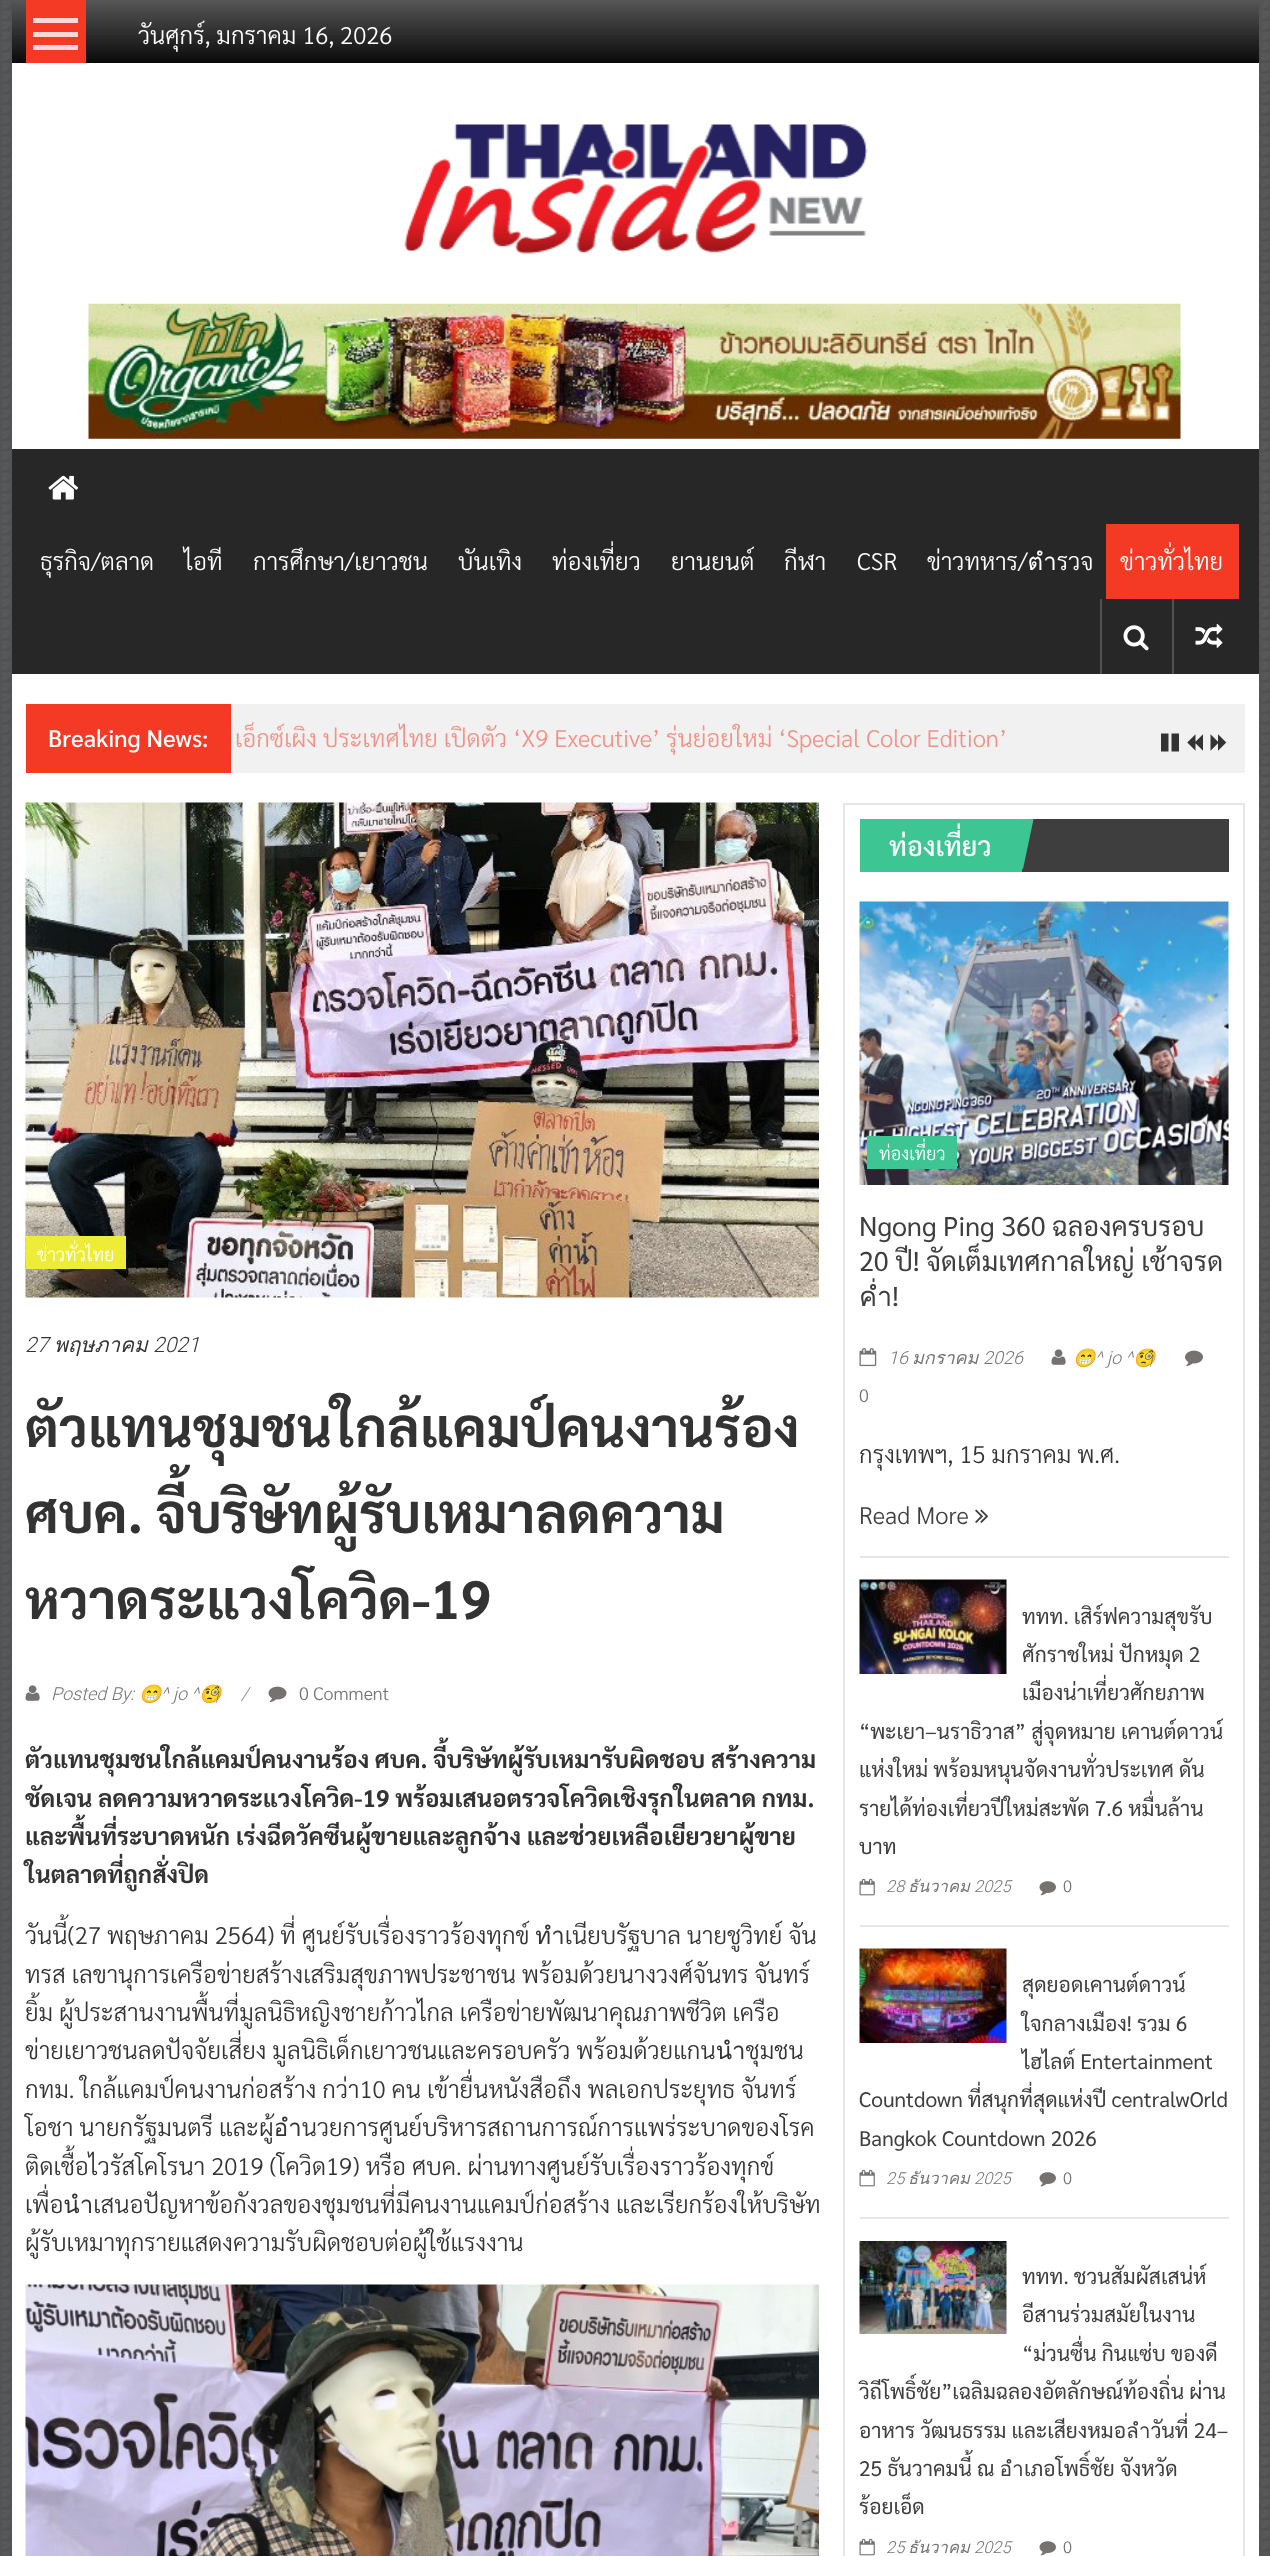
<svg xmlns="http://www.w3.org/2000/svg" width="1270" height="2556">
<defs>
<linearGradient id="g1" gradientUnits="userSpaceOnUse" x1="635" y1="0" x2="635" y2="63"><stop offset="0" stop-color="#565656"/><stop offset="1" stop-color="#0a0a0a"/></linearGradient>
<clipPath id="clip1"><rect x="860" y="819" width="369" height="53"/></clipPath>
</defs>
<rect width="100%" height="100%" fill="#fff"/>
<image x="0" y="0" width="1270" height="2556" href="media/1.png"/>
<rect x="12" y="63" width="1247" height="2493" fill="#fff"/>
<rect x="12" width="1247" height="63" fill="url(#g1)"/>
<rect x="26" width="60" height="63" fill="#f43924"/>
<rect x="33" y="18" width="45" height="5" fill="#fdd7d3"/>
<rect x="33" y="32" width="45" height="5" fill="#fdd7d3"/>
<rect x="33" y="45" width="45" height="5" fill="#fdd7d3"/>
<text x="138" y="44" style="font-family:Sarabun;font-size:24px;font-weight:300;fill:#fff">วันศุกร์, มกราคม 16, 2026</text>
<image x="404" y="124" width="464" height="130" href="media/2.png"/>
<image x="88" y="303" width="1093" height="136" href="media/3.png"/>
<rect x="12" y="449" width="1247" height="225" fill="#272727"/>
<image x="48" y="475" width="31" height="25" href="media/4.png"/>
<text x="40" y="570" style="font-family:Sarabun;font-size:24px;font-weight:300;fill:#fff">ธุรกิจ/ตลาด</text>
<text x="184" y="570" style="font-family:Sarabun;font-size:24px;font-weight:300;fill:#fff">ไอที</text>
<text x="253" y="570" style="font-family:Sarabun;font-size:24px;font-weight:300;fill:#fff">การศึกษา/เยาวชน</text>
<text x="458" y="570" style="font-family:Sarabun;font-size:24px;font-weight:300;fill:#fff">บันเทิง</text>
<text x="552" y="570" style="font-family:Sarabun;font-size:24px;font-weight:300;fill:#fff">ท่องเที่ยว</text>
<text x="671" y="570" style="font-family:Sarabun;font-size:24px;font-weight:300;fill:#fff">ยานยนต์</text>
<text x="784" y="570" style="font-family:Sarabun;font-size:24px;font-weight:300;fill:#fff">กีฬา</text>
<text x="857" y="570" style="font-family:Sarabun;font-size:24px;font-weight:300;fill:#fff">CSR</text>
<text x="927" y="570" style="font-family:Sarabun;font-size:24px;font-weight:300;fill:#fff">ข่าวทหาร/ตำรวจ</text>
<rect x="1106" y="524" width="133" height="75" fill="#f43924"/>
<text x="1120" y="570" style="font-family:Sarabun;font-size:24px;font-weight:300;fill:#fff">ข่าวทั่วไทย</text>
<rect x="1100" y="599" width="2" height="75" fill="#525252"/>
<image x="1123" y="625" width="26" height="26" href="media/5.png"/>
<rect x="1172" y="599" width="2" height="75" fill="#525252"/>
<image x="1195" y="623" width="28" height="25" href="media/6.png"/>
<rect x="231" y="704" width="1014" height="69" fill="#f1f1f1"/>
<rect x="26" y="704" width="205" height="69" fill="#f43924"/>
<text x="48" y="747" style="font-family:Sarabun;font-size:24px;font-weight:500;fill:#fff">Breaking News:</text>
<text x="235" y="747" style="font-family:Sarabun;font-size:24px;font-weight:300;fill:#f39186">เอ็กซ์เผิง ประเทศไทย เปิดตัว ‘X9 Executive’ รุ่นย่อยใหม่ ‘Special Color Edition’</text>
<image x="1161" y="733" width="18" height="19" href="media/7.png"/>
<image x="1187" y="734" width="16" height="17" href="media/8.png"/>
<image x="1210" y="734" width="17" height="17" href="media/9.png"/>
<image x="25" y="802" width="794" height="496" href="media/10.png"/>
<rect x="26" y="1236" width="100" height="33" fill="#eded38"/>
<text x="37" y="1261" style="font-family:Sarabun;font-size:18px;font-weight:300;fill:#fff">ข่าวทั่วไทย</text>
<text x="25" y="1352" style="font-family:Roboto;font-size:21px;font-weight:300;font-style:italic;fill:#333">27</text>
<text x="54" y="1352" style="font-family:Loma;font-size:21px;font-style:italic;fill:#333">พฤษภาคม</text>
<text x="153" y="1352" style="font-family:Roboto;font-size:21px;font-weight:300;font-style:italic;fill:#333">2021</text>
<text x="25" y="1447" style="font-family:Sarabun;font-size:54px;font-weight:bold;fill:#333">ตัวแทนชุมชนใกล้แคมป์คนงานร้อง</text>
<text x="25" y="1533" style="font-family:Sarabun;font-size:54px;font-weight:bold;fill:#333">ศบค. จี้บริษัทผู้รับเหมาลดความ</text>
<text x="25" y="1619" style="font-family:Sarabun;font-size:54px;font-weight:bold;fill:#333">หวาดระแวงโควิด-19</text>
<image x="25" y="1685" width="15" height="16" href="media/11.png"/>
<text x="51" y="1700" style="font-family:Roboto;font-size:18px;font-weight:300;font-style:italic;fill:#767272">Posted By:</text>
<text x="139" y="1700" style="font-family:Noto Color Emoji;font-size:18px;font-style:italic;fill:#767272">😁</text>
<text x="161" y="1700" style="font-family:Roboto;font-size:18px;font-weight:300;font-style:italic;fill:#767272">^ jo ^</text>
<text x="199" y="1700" style="font-family:Noto Color Emoji;font-size:18px;font-style:italic;fill:#767272">🧐</text>
<text x="241" y="1700" style="font-family:Roboto;font-size:18px;font-weight:300;font-style:italic;fill:#808080">/</text>
<image x="268" y="1686" width="19" height="16" href="media/12.png"/>
<text x="299" y="1700" style="font-family:Sarabun;font-size:18px;font-weight:300;fill:#767272">0 Comment</text>
<text x="25" y="1768" style="font-family:Sarabun;font-size:24px;font-weight:bold;fill:#333">ตัวแทนชุมชนใกล้แคมป์คนงานร้อง ศบค. จี้บริษัทผู้รับเหมารับผิดชอบ สร้างความ</text>
<text x="25" y="1807" style="font-family:Sarabun;font-size:24px;font-weight:bold;fill:#333">ชัดเจน ลดความหวาดระแวงโควิด-19 พร้อมเสนอตรวจโควิดเชิงรุกในตลาด กทม.</text>
<text x="25" y="1845" style="font-family:Sarabun;font-size:24px;font-weight:bold;fill:#333">และพื้นที่ระบาดหนัก เร่งฉีดวัคซีนผู้ขายและลูกจ้าง และช่วยเหลือเยียวยาผู้ขาย</text>
<text x="25" y="1883" style="font-family:Sarabun;font-size:24px;font-weight:bold;fill:#333">ในตลาดที่ถูกสั่งปิด</text>
<text x="25" y="1944" style="font-family:Sarabun;font-size:24px;font-weight:300;fill:#333">วันนี้(27 พฤษภาคม 2564) ที่ ศูนย์รับเรื่องราวร้องทุกข์ ทำเนียบรัฐบาล นายชูวิทย์ จัน</text>
<text x="25" y="1983" style="font-family:Sarabun;font-size:24px;font-weight:300;fill:#333">ทรส เลขานุการเครือข่ายสร้างเสริมสุขภาพประชาชน พร้อมด้วยนางวงศ์จันทร จันทร์</text>
<text x="25" y="2021" style="font-family:Sarabun;font-size:24px;font-weight:300;fill:#333">ยิ้ม ผู้ประสานงานพื้นที่มูลนิธิหญิงชายก้าวไกล เครือข่ายพัฒนาคุณภาพชีวิต เครือ</text>
<text x="25" y="2059" style="font-family:Sarabun;font-size:24px;font-weight:300;fill:#333">ข่ายเยาวชนลดปัจจัยเสี่ยง มูลนิธิเด็กเยาวชนและครอบครัว พร้อมด้วยแกนนำชุมชน</text>
<text x="25" y="2098" style="font-family:Sarabun;font-size:24px;font-weight:300;fill:#333">กทม. ใกล้แคมป์คนงานก่อสร้าง กว่า10 คน เข้ายื่นหนังสือถึง พลเอกประยุทธ จันทร์</text>
<text x="25" y="2136" style="font-family:Sarabun;font-size:24px;font-weight:300;fill:#333">โอชา นายกรัฐมนตรี และผู้อำนวยการศูนย์บริหารสถานการณ์การแพร่ระบาดของโรค</text>
<text x="25" y="2175" style="font-family:Sarabun;font-size:24px;font-weight:300;fill:#333">ติดเชื้อไวรัสโคโรนา 2019 (โควิด19) หรือ ศบค. ผ่านทางศูนย์รับเรื่องราวร้องทุกข์</text>
<text x="25" y="2213" style="font-family:Sarabun;font-size:24px;font-weight:300;fill:#333">เพื่อนำเสนอปัญหาข้อกังวลของชุมชนที่มีคนงานแคมป์ก่อสร้าง และเรียกร้องให้บริษัท</text>
<text x="25" y="2251" style="font-family:Sarabun;font-size:24px;font-weight:300;fill:#333">ผู้รับเหมาทุกรายแสดงความรับผิดชอบต่อผู้ใช้แรงงาน</text>
<image x="25" y="2284" width="794" height="272" href="media/13.png"/>
<rect x="844" y="804" width="400" height="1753" fill="none" stroke="#e6e6e6" stroke-width="2"/>
<rect x="1022" y="819" width="207" height="53" fill="#3e3e3e"/>
<rect x="860" y="819" width="162" height="53" fill="#3dc694"/>
<g clip-path="url(#clip1)">
<path d="M1034 817l-11 52l-52-12l12-51z" fill="#3dc694"/>
</g>
<text x="889" y="856" style="font-family:Sarabun;font-size:27px;font-weight:500;fill:#fff">ท่องเที่ยว</text>
<rect x="860" y="1556" width="369" height="2" fill="#e6e6e6"/>
<image x="859" y="901" width="370" height="284" href="media/14.png"/>
<rect x="867" y="1136" width="90" height="33" fill="#3dc694"/>
<text x="879" y="1160" style="font-family:Sarabun;font-size:18px;font-weight:300;fill:#fff">ท่องเที่ยว</text>
<text x="859" y="1236" style="font-family:Sarabun;font-size:27px;fill:#3e3e3e">Ngong Ping 360 ฉลองครบรอบ</text>
<text x="859" y="1271" style="font-family:Sarabun;font-size:27px;fill:#3e3e3e">20 ปี! จัดเต็มเทศกาลใหญ่ เช้าจรด</text>
<text x="859" y="1306" style="font-family:Sarabun;font-size:27px;fill:#3e3e3e">ค่ำ!</text>
<image x="859" y="1348" width="18" height="19" href="media/15.png"/>
<text x="888" y="1364" style="font-family:Roboto;font-size:18px;font-weight:300;font-style:italic;fill:#767272">16</text>
<text x="912" y="1364" style="font-family:Loma;font-size:18px;font-style:italic;fill:#767272">มกราคม</text>
<text x="983" y="1364" style="font-family:Roboto;font-size:18px;font-weight:300;font-style:italic;fill:#767272">2026</text>
<image x="1051" y="1349" width="15" height="16" href="media/11.png"/>
<text x="1073" y="1364" style="font-family:Noto Color Emoji;font-size:18px;font-style:italic;fill:#767272">😁</text>
<text x="1095" y="1364" style="font-family:Roboto;font-size:18px;font-weight:300;font-style:italic;fill:#767272">^ jo ^</text>
<text x="1133" y="1364" style="font-family:Noto Color Emoji;font-size:18px;font-style:italic;fill:#767272">🧐</text>
<image x="1185" y="1350" width="18" height="16" href="media/16.png"/>
<text x="859" y="1402" style="font-family:Sarabun;font-size:18px;font-weight:300;fill:#767272">0</text>
<text x="859" y="1463" style="font-family:Sarabun;font-size:24px;font-weight:300;fill:#333">กรุงเทพฯ, 15 มกราคม พ.ศ.</text>
<text x="859" y="1524" style="font-family:Sarabun;font-size:24px;font-weight:300;fill:#3e3e3e">Read More</text>
<image x="975" y="1509" width="14" height="14" href="media/17.png"/>
<rect x="860" y="1925" width="369" height="2" fill="#e6e6e6"/>
<image x="859" y="1579" width="148" height="95" href="media/18.png"/>
<text x="1022" y="1624" style="font-family:Sarabun;font-size:21px;fill:#3e3e3e">ททท. เสิร์ฟความสุขรับ</text>
<text x="1022" y="1662" style="font-family:Sarabun;font-size:21px;fill:#3e3e3e">ศักราชใหม่ ปักหมุด 2</text>
<text x="1022" y="1700" style="font-family:Sarabun;font-size:21px;fill:#3e3e3e">เมืองน่าเที่ยวศักยภาพ</text>
<text x="859" y="1739" style="font-family:Sarabun;font-size:21px;fill:#3e3e3e">“พะเยา–นราธิวาส” สู่จุดหมาย เคานต์ดาวน์</text>
<text x="859" y="1777" style="font-family:Sarabun;font-size:21px;fill:#3e3e3e">แห่งใหม่ พร้อมหนุนจัดงานทั่วประเทศ ดัน</text>
<text x="859" y="1816" style="font-family:Sarabun;font-size:21px;fill:#3e3e3e">รายได้ท่องเที่ยวปีใหม่สะพัด 7.6 หมื่นล้าน</text>
<text x="859" y="1854" style="font-family:Sarabun;font-size:21px;fill:#3e3e3e">บาท</text>
<image x="859" y="1878" width="16" height="18" href="media/19.png"/>
<text x="886" y="1892" style="font-family:Roboto;font-size:16.5px;font-weight:300;font-style:italic;fill:#767272">28</text>
<text x="908" y="1892" style="font-family:Loma;font-size:16.5px;font-style:italic;fill:#767272">ธันวาคม</text>
<text x="974" y="1892" style="font-family:Roboto;font-size:16.5px;font-weight:300;font-style:italic;fill:#767272">2025</text>
<image x="1039" y="1881" width="17" height="15" href="media/20.png"/>
<text x="1063" y="1892" style="font-family:Sarabun;font-size:16.5px;font-weight:300;fill:#767272">0</text>
<rect x="860" y="2217" width="369" height="2" fill="#e6e6e6"/>
<image x="859" y="1948" width="148" height="95" href="media/21.png"/>
<text x="1022" y="1992" style="font-family:Sarabun;font-size:21px;fill:#3e3e3e">สุดยอดเคานต์ดาวน์</text>
<text x="1022" y="2031" style="font-family:Sarabun;font-size:21px;fill:#3e3e3e">ใจกลางเมือง! รวม 6</text>
<text x="1022" y="2069" style="font-family:Sarabun;font-size:21px;fill:#3e3e3e">ไฮไลต์ Entertainment</text>
<text x="859" y="2107" style="font-family:Sarabun;font-size:21px;fill:#3e3e3e">Countdown ที่สนุกที่สุดแห่งปี centralwOrld</text>
<text x="859" y="2146" style="font-family:Sarabun;font-size:21px;fill:#3e3e3e">Bangkok Countdown 2026</text>
<image x="859" y="2169" width="16" height="18" href="media/19.png"/>
<text x="886" y="2184" style="font-family:Roboto;font-size:16.5px;font-weight:300;font-style:italic;fill:#767272">25</text>
<text x="908" y="2184" style="font-family:Loma;font-size:16.5px;font-style:italic;fill:#767272">ธันวาคม</text>
<text x="974" y="2184" style="font-family:Roboto;font-size:16.5px;font-weight:300;font-style:italic;fill:#767272">2025</text>
<image x="1039" y="2172" width="17" height="15" href="media/20.png"/>
<text x="1063" y="2184" style="font-family:Sarabun;font-size:16.5px;font-weight:300;fill:#767272">0</text>
<image x="859" y="2241" width="148" height="93" href="media/22.png"/>
<text x="1022" y="2284" style="font-family:Sarabun;font-size:21px;fill:#3e3e3e">ททท. ชวนสัมผัสเสน่ห์</text>
<text x="1022" y="2322" style="font-family:Sarabun;font-size:21px;fill:#3e3e3e">อีสานร่วมสมัยในงาน</text>
<text x="1022" y="2361" style="font-family:Sarabun;font-size:21px;fill:#3e3e3e">“ม่วนซื่น กินแซ่บ ของดี</text>
<text x="859" y="2399" style="font-family:Sarabun;font-size:21px;fill:#3e3e3e">วิถีโพธิ์ชัย”เฉลิมฉลองอัตลักษณ์ท้องถิ่น ผ่าน</text>
<text x="859" y="2438" style="font-family:Sarabun;font-size:21px;fill:#3e3e3e">อาหาร วัฒนธรรม และเสียงหมอลำวันที่ 24–</text>
<text x="859" y="2476" style="font-family:Sarabun;font-size:21px;fill:#3e3e3e">25 ธันวาคมนี้ ณ อำเภอโพธิ์ชัย จังหวัด</text>
<text x="859" y="2514" style="font-family:Sarabun;font-size:21px;fill:#3e3e3e">ร้อยเอ็ด</text>
<image x="859" y="2538" width="16" height="18" href="media/19.png"/>
<text x="886" y="2553" style="font-family:Roboto;font-size:16.5px;font-weight:300;font-style:italic;fill:#767272">25</text>
<text x="908" y="2553" style="font-family:Loma;font-size:16.5px;font-style:italic;fill:#767272">ธันวาคม</text>
<text x="974" y="2553" style="font-family:Roboto;font-size:16.5px;font-weight:300;font-style:italic;fill:#767272">2025</text>
<image x="1039" y="2541" width="17" height="15" href="media/20.png"/>
<text x="1063" y="2553" style="font-family:Sarabun;font-size:16.5px;font-weight:300;fill:#767272">0</text>
</svg>
